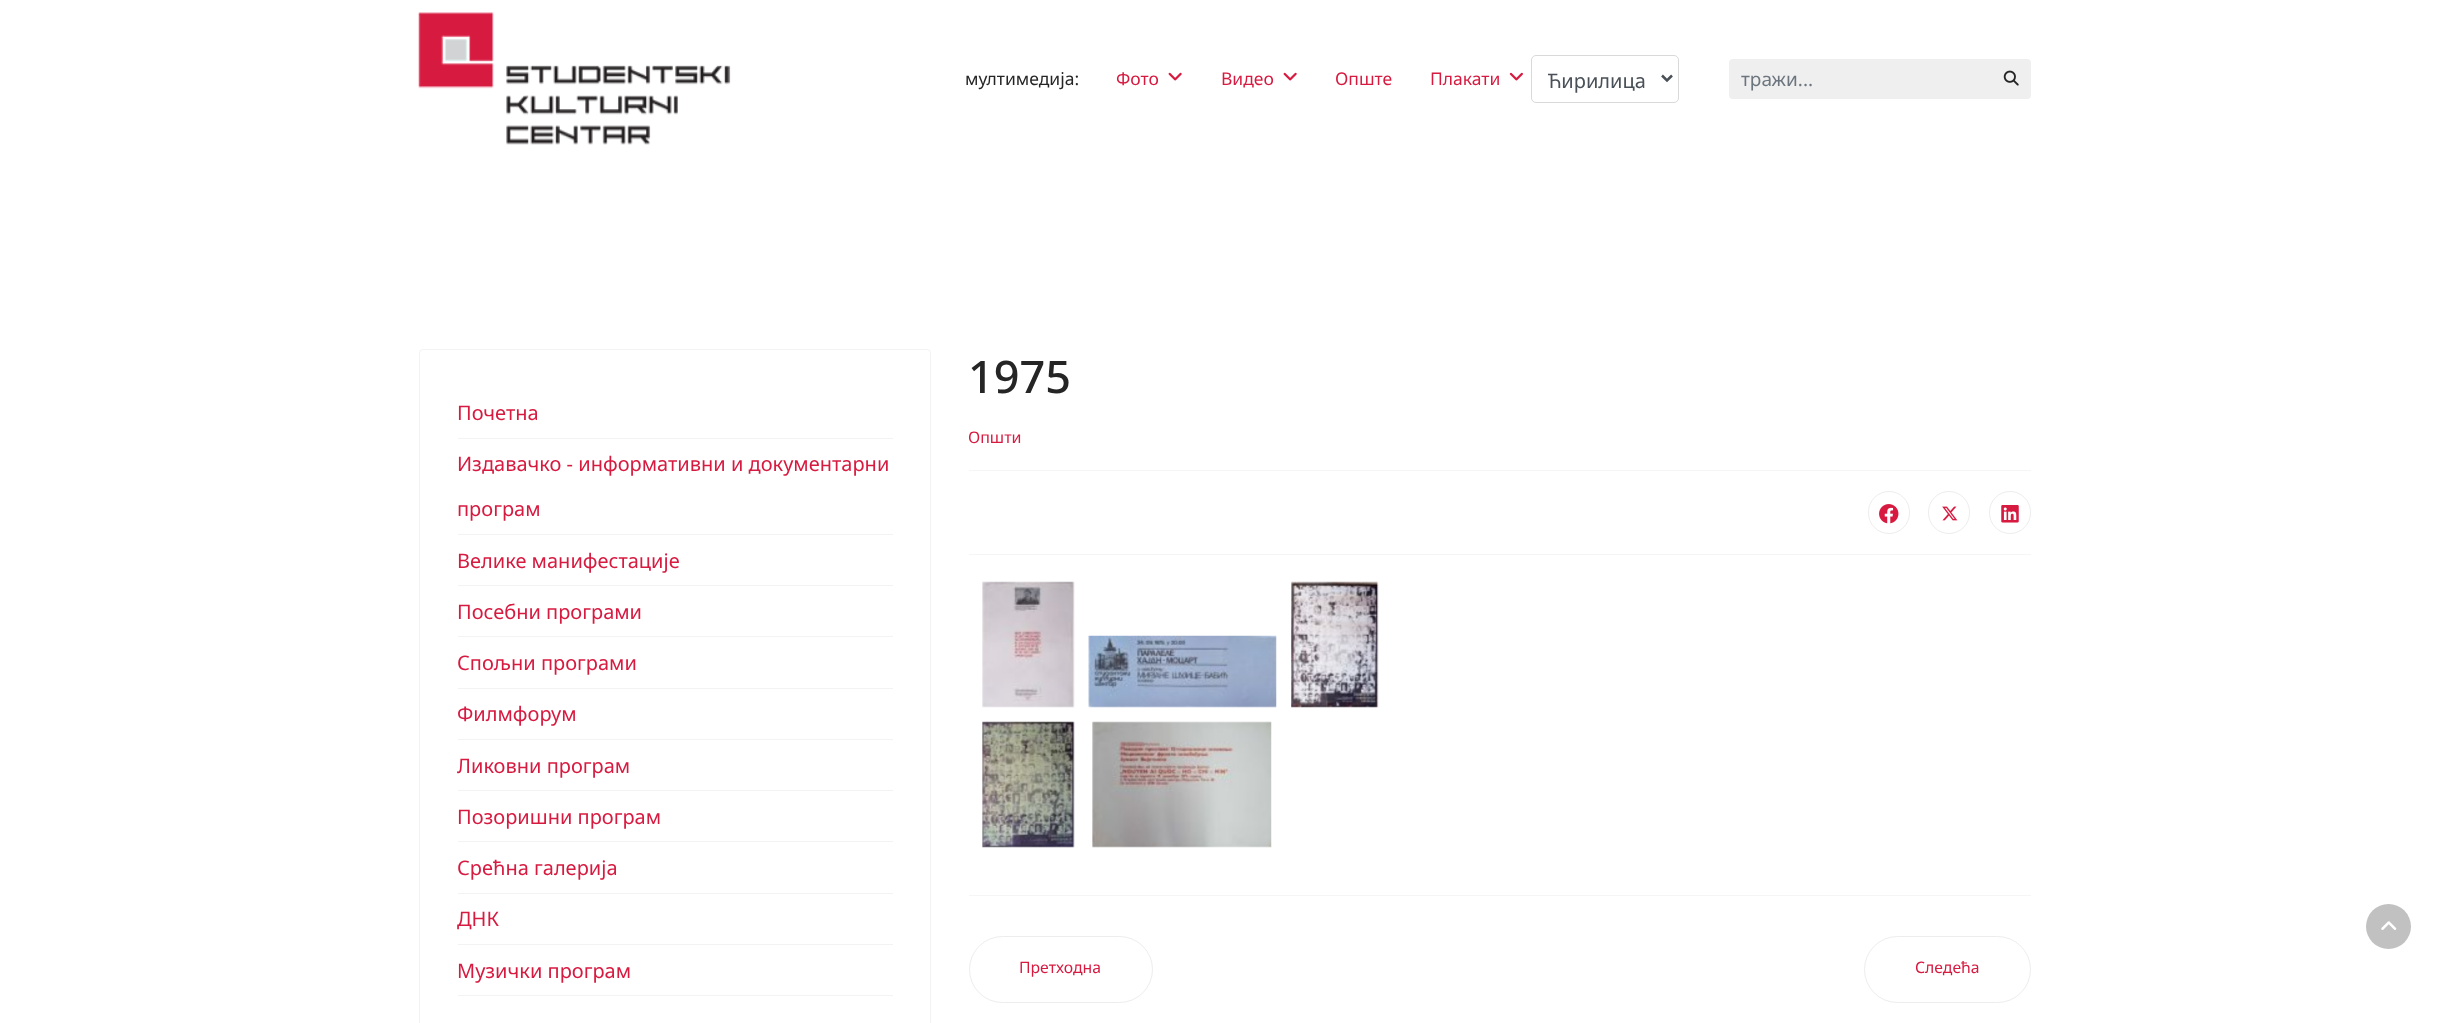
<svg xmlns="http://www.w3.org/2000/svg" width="2448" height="1023">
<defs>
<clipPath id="clip1"><rect x="1548" y="66" width="100" height="30"/></clipPath>
</defs>
<rect width="100%" height="100%" fill="#fff"/>
<image x="418" y="12" width="313" height="133" href="media/1.png"/>
<text x="965" y="85" style="font-family:Noto Sans;font-size:17.5px;fill:#252525">мултимедија:</text>
<text x="1116" y="85" style="font-family:Noto Sans;font-size:17.5px;fill:#d71a40">Фото</text>
<image x="1168" y="72" width="14" height="9" href="media/2.png"/>
<text x="1221" y="85" style="font-family:Noto Sans;font-size:17.5px;fill:#d71a40">Видео</text>
<image x="1283" y="72" width="14" height="9" href="media/2.png"/>
<text x="1335" y="85" style="font-family:Noto Sans;font-size:17.5px;fill:#d71a40">Опште</text>
<text x="1430" y="85" style="font-family:Noto Sans;font-size:17.5px;fill:#d71a40">Плакати</text>
<image x="1509" y="72" width="14" height="9" href="media/3.png"/>
<rect x="1531.5" y="55.5" width="147" height="47" rx="4.5" fill="none" stroke="#d9d9d9"/>
<path d="M1662 75.5l5 5l5-5" fill="none" stroke="#495057" stroke-width="2.5"/>
<g clip-path="url(#clip1)">
<text x="1547" y="88" style="font-family:Noto Sans;font-size:20px;fill:#495057">Ћирилица</text>
</g>
<rect x="1729" y="59" width="302" height="40" rx="4" fill="#efeff0"/>
<text x="1741" y="86" style="font-family:Noto Sans;font-size:19px;fill:#6c757d">тражи...</text>
<image x="2003" y="70" width="16" height="16" href="media/4.png"/>
<rect x="419.5" y="349.5" width="511" height="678" rx="3.5" fill="none" stroke="#f3f3f3"/>
<rect x="458" y="438" width="435" height="1" fill="#f3f3f3"/>
<text x="457" y="420" style="font-family:Noto Sans;font-size:20px;fill:#d71a40">Почетна</text>
<rect x="458" y="534" width="435" height="1" fill="#f3f3f3"/>
<text x="457" y="471" style="font-family:Noto Sans;font-size:20px;fill:#d71a40">Издавачко - информативни и документарни</text>
<text x="457" y="516" style="font-family:Noto Sans;font-size:20px;fill:#d71a40">програм</text>
<rect x="458" y="585" width="435" height="1" fill="#f3f3f3"/>
<text x="457" y="568" style="font-family:Noto Sans;font-size:20px;fill:#d71a40">Велике манифестације</text>
<rect x="458" y="636" width="435" height="1" fill="#f3f3f3"/>
<text x="457" y="619" style="font-family:Noto Sans;font-size:20px;fill:#d71a40">Посебни програми</text>
<rect x="458" y="688" width="435" height="1" fill="#f3f3f3"/>
<text x="457" y="670" style="font-family:Noto Sans;font-size:20px;fill:#d71a40">Спољни програми</text>
<rect x="458" y="739" width="435" height="1" fill="#f3f3f3"/>
<text x="457" y="721" style="font-family:Noto Sans;font-size:20px;fill:#d71a40">Филмфорум</text>
<rect x="458" y="790" width="435" height="1" fill="#f3f3f3"/>
<text x="457" y="773" style="font-family:Noto Sans;font-size:20px;fill:#d71a40">Ликовни програм</text>
<rect x="458" y="841" width="435" height="1" fill="#f3f3f3"/>
<text x="457" y="824" style="font-family:Noto Sans;font-size:20px;fill:#d71a40">Позоришни програм</text>
<rect x="458" y="893" width="435" height="1" fill="#f3f3f3"/>
<text x="457" y="875" style="font-family:Noto Sans;font-size:20px;fill:#d71a40">Срећна галерија</text>
<rect x="458" y="944" width="435" height="1" fill="#f3f3f3"/>
<text x="457" y="926" style="font-family:Noto Sans;font-size:20px;fill:#d71a40">ДНК</text>
<rect x="458" y="995" width="435" height="1" fill="#f3f3f3"/>
<text x="457" y="978" style="font-family:Noto Sans;font-size:20px;fill:#d71a40">Музички програм</text>
<text x="968" y="393" style="font-family:Noto Sans;font-size:45px;font-weight:500;fill:#252525">1975</text>
<text x="968" y="443" style="font-family:Noto Sans;font-size:16px;fill:#d71a40">Општи</text>
<rect x="969" y="470" width="1062" height="1" fill="#f5f5f5"/>
<rect x="969" y="554" width="1062" height="1" fill="#f5f5f5"/>
<rect x="1868.5" y="491.5" width="41" height="42" rx="20.5" fill="none" stroke="#ededed"/>
<image x="1879" y="504" width="20" height="20" href="media/5.png"/>
<rect x="1928.5" y="491.5" width="41" height="42" rx="20.5" fill="none" stroke="#ededed"/>
<image x="1942" y="506" width="16" height="15" href="media/6.png"/>
<rect x="1989.5" y="491.5" width="41" height="42" rx="20.5" fill="none" stroke="#ededed"/>
<image x="2001" y="505" width="18" height="18" href="media/7.png"/>
<image x="982" y="581" width="93" height="127" href="media/8.png"/>
<image x="1088" y="635" width="189" height="73" href="media/9.png"/>
<image x="1291" y="581" width="88" height="127" href="media/10.png"/>
<image x="982" y="721" width="93" height="127" href="media/11.png"/>
<image x="1092" y="721" width="180" height="127" href="media/12.png"/>
<rect x="969" y="895" width="1062" height="1" fill="#f5f5f5"/>
<rect x="969.5" y="936.5" width="183" height="66" rx="33" fill="none" stroke="#ededed"/>
<text x="1019" y="973" style="font-family:Noto Sans;font-size:15.75px;fill:#d71a40">Претходна</text>
<rect x="1864.5" y="936.5" width="166" height="66" rx="33" fill="none" stroke="#ededed"/>
<text x="1915" y="973" style="font-family:Noto Sans;font-size:15.75px;fill:#d71a40">Следећа</text>
<circle cx="2388.5" cy="926.5" r="22.5" fill="#c1c1c1"/>
<image x="2381" y="921" width="16" height="9" href="media/13.png"/>
</svg>
